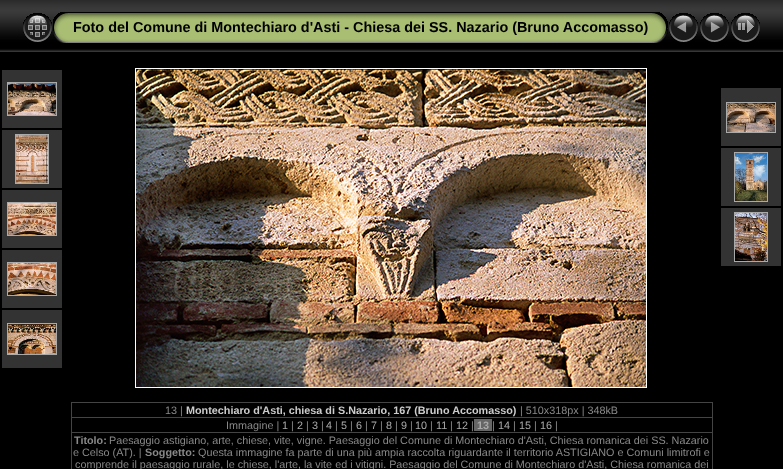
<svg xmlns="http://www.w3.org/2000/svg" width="783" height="469">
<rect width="100%" height="100%" fill="#000"/>
<image x="0" y="0" width="783" height="52" href="media/1.png"/>
<image x="23" y="13" width="29" height="29" href="media/2.png"/>
<image x="53" y="12" width="20" height="31" href="media/3.png"/>
<image x="73" y="12" width="575" height="31" href="media/4.png"/>
<text x="73" y="32" style="font-family:Liberation Sans;font-size:14.4px;font-weight:bold;fill:#000">Foto del Comune di Montechiaro d'Asti - Chiesa dei SS. Nazario (Bruno Accomasso)</text>
<image x="648" y="12" width="20" height="31" href="media/5.png"/>
<image x="669" y="13" width="29" height="29" href="media/6.png"/>
<image x="700" y="13" width="29" height="29" href="media/7.png"/>
<image x="731" y="13" width="29" height="29" href="media/8.png"/>
<rect x="2" y="70" width="60" height="58" fill="#333"/>
<rect x="7.5" y="82.5" width="49" height="33" fill="none" stroke="#aaa"/>
<image x="8" y="83" width="48" height="32" href="media/9.png"/>
<rect x="2" y="130" width="60" height="58" fill="#333"/>
<rect x="15.5" y="134.5" width="33" height="49" fill="none" stroke="#aaa"/>
<image x="16" y="135" width="32" height="48" href="media/10.png"/>
<rect x="2" y="190" width="60" height="58" fill="#333"/>
<rect x="7.5" y="202.5" width="49" height="33" fill="none" stroke="#aaa"/>
<image x="8" y="203" width="48" height="32" href="media/11.png"/>
<rect x="2" y="250" width="60" height="58" fill="#333"/>
<rect x="7.5" y="262.5" width="49" height="33" fill="none" stroke="#aaa"/>
<image x="8" y="263" width="48" height="32" href="media/12.png"/>
<rect x="2" y="310" width="60" height="58" fill="#333"/>
<rect x="7.5" y="323.5" width="49" height="31" fill="none" stroke="#aaa"/>
<image x="8" y="324" width="48" height="30" href="media/13.png"/>
<rect x="135.5" y="68.5" width="511" height="319" fill="none" stroke="#fff"/>
<image x="136" y="69" width="510" height="318" href="media/14.png"/>
<rect x="721" y="88" width="60" height="58" fill="#333"/>
<rect x="726.5" y="102.5" width="49" height="30" fill="none" stroke="#aaa"/>
<image x="727" y="103" width="48" height="29" href="media/15.png"/>
<rect x="721" y="148" width="60" height="58" fill="#333"/>
<rect x="734.5" y="152.5" width="33" height="49" fill="none" stroke="#aaa"/>
<image x="735" y="153" width="32" height="48" href="media/16.png"/>
<rect x="721" y="208" width="60" height="58" fill="#333"/>
<rect x="734.5" y="212.5" width="33" height="49" fill="none" stroke="#aaa"/>
<image x="735" y="213" width="32" height="48" href="media/17.png"/>
<rect x="71" y="402" width="642" height="1" fill="#444"/>
<rect x="712" y="402" width="1" height="67" fill="#444"/>
<rect x="71" y="402" width="1" height="67" fill="#444"/>
<text x="165" y="414" style="font-family:Liberation Sans;font-size:10.8px;fill:#888">13 |</text>
<text x="186" y="414" style="font-family:Liberation Sans;font-size:10.8px;font-weight:bold;fill:#ccc">Montechiaro d'Asti, chiesa di S.Nazario, 167 (Bruno Accomasso)</text>
<text x="520" y="414" style="font-family:Liberation Sans;font-size:10.8px;fill:#888">| 510x318px | 348kB</text>
<rect x="71" y="417" width="642" height="1" fill="#444"/>
<text x="226" y="429" style="font-family:Liberation Sans;font-size:10.8px;fill:#888">Immagine |</text>
<text x="282" y="429" style="font-family:Liberation Sans;font-size:10.8px;fill:#aaa">1</text>
<text x="291" y="429" style="font-family:Liberation Sans;font-size:10.8px;fill:#888">|</text>
<text x="297" y="429" style="font-family:Liberation Sans;font-size:10.8px;fill:#aaa">2</text>
<text x="306" y="429" style="font-family:Liberation Sans;font-size:10.8px;fill:#888">|</text>
<text x="312" y="429" style="font-family:Liberation Sans;font-size:10.8px;fill:#aaa">3</text>
<text x="321" y="429" style="font-family:Liberation Sans;font-size:10.8px;fill:#888">|</text>
<text x="326" y="429" style="font-family:Liberation Sans;font-size:10.8px;fill:#aaa">4</text>
<text x="335" y="429" style="font-family:Liberation Sans;font-size:10.8px;fill:#888">|</text>
<text x="341" y="429" style="font-family:Liberation Sans;font-size:10.8px;fill:#aaa">5</text>
<text x="350" y="429" style="font-family:Liberation Sans;font-size:10.8px;fill:#888">|</text>
<text x="356" y="429" style="font-family:Liberation Sans;font-size:10.8px;fill:#aaa">6</text>
<text x="365" y="429" style="font-family:Liberation Sans;font-size:10.8px;fill:#888">|</text>
<text x="371" y="429" style="font-family:Liberation Sans;font-size:10.8px;fill:#aaa">7</text>
<text x="380" y="429" style="font-family:Liberation Sans;font-size:10.8px;fill:#888">|</text>
<text x="386" y="429" style="font-family:Liberation Sans;font-size:10.8px;fill:#aaa">8</text>
<text x="395" y="429" style="font-family:Liberation Sans;font-size:10.8px;fill:#888">|</text>
<text x="401" y="429" style="font-family:Liberation Sans;font-size:10.8px;fill:#aaa">9</text>
<text x="410" y="429" style="font-family:Liberation Sans;font-size:10.8px;fill:#888">|</text>
<text x="415" y="429" style="font-family:Liberation Sans;font-size:10.8px;fill:#aaa">10</text>
<text x="430" y="429" style="font-family:Liberation Sans;font-size:10.8px;fill:#888">|</text>
<text x="436" y="429" style="font-family:Liberation Sans;font-size:10.8px;fill:#aaa">11</text>
<text x="450" y="429" style="font-family:Liberation Sans;font-size:10.8px;fill:#888">|</text>
<text x="456" y="429" style="font-family:Liberation Sans;font-size:10.8px;fill:#aaa">12</text>
<text x="471" y="429" style="font-family:Liberation Sans;font-size:10.8px;fill:#888">|</text>
<rect x="474" y="419" width="18" height="12" fill="#666"/>
<text x="477" y="429" style="font-family:Liberation Sans;font-size:10.8px;font-weight:bold;fill:#aaa">13</text>
<text x="492" y="429" style="font-family:Liberation Sans;font-size:10.8px;fill:#888">|</text>
<text x="498" y="429" style="font-family:Liberation Sans;font-size:10.8px;fill:#aaa">14</text>
<text x="513" y="429" style="font-family:Liberation Sans;font-size:10.8px;fill:#888">|</text>
<text x="519" y="429" style="font-family:Liberation Sans;font-size:10.8px;fill:#aaa">15</text>
<text x="534" y="429" style="font-family:Liberation Sans;font-size:10.8px;fill:#888">|</text>
<text x="540" y="429" style="font-family:Liberation Sans;font-size:10.8px;fill:#aaa">16</text>
<text x="555" y="429" style="font-family:Liberation Sans;font-size:10.8px;fill:#888">|</text>
<rect x="71" y="432" width="642" height="1" fill="#444"/>
<text x="74" y="444" style="font-family:Liberation Sans;font-size:10.8px;font-weight:bold;fill:#888">Titolo:</text>
<text x="109" y="444" style="font-family:Liberation Sans;font-size:10.8px;fill:#888">Paesaggio astigiano, arte, chiese, vite, vigne. Paesaggio del Comune di Montechiaro d'Asti, Chiesa romanica dei SS. Nazario</text>
<text x="73" y="456" style="font-family:Liberation Sans;font-size:10.8px;fill:#888">e Celso (AT). |</text>
<text x="145" y="456" style="font-family:Liberation Sans;font-size:10.8px;font-weight:bold;fill:#888">Soggetto:</text>
<text x="198" y="456" style="font-family:Liberation Sans;font-size:10.8px;fill:#888">Questa immagine fa parte di una più ampia raccolta riguardante il territorio ASTIGIANO e Comuni limitrofi e</text>
<text x="75" y="468" style="font-family:Liberation Sans;font-size:10.8px;fill:#888">comprende il paesaggio rurale, le chiese, l'arte, la vite ed i vitigni. Paesaggio del Comune di Montechiaro d'Asti, Chiesa romanica dei</text>
</svg>
